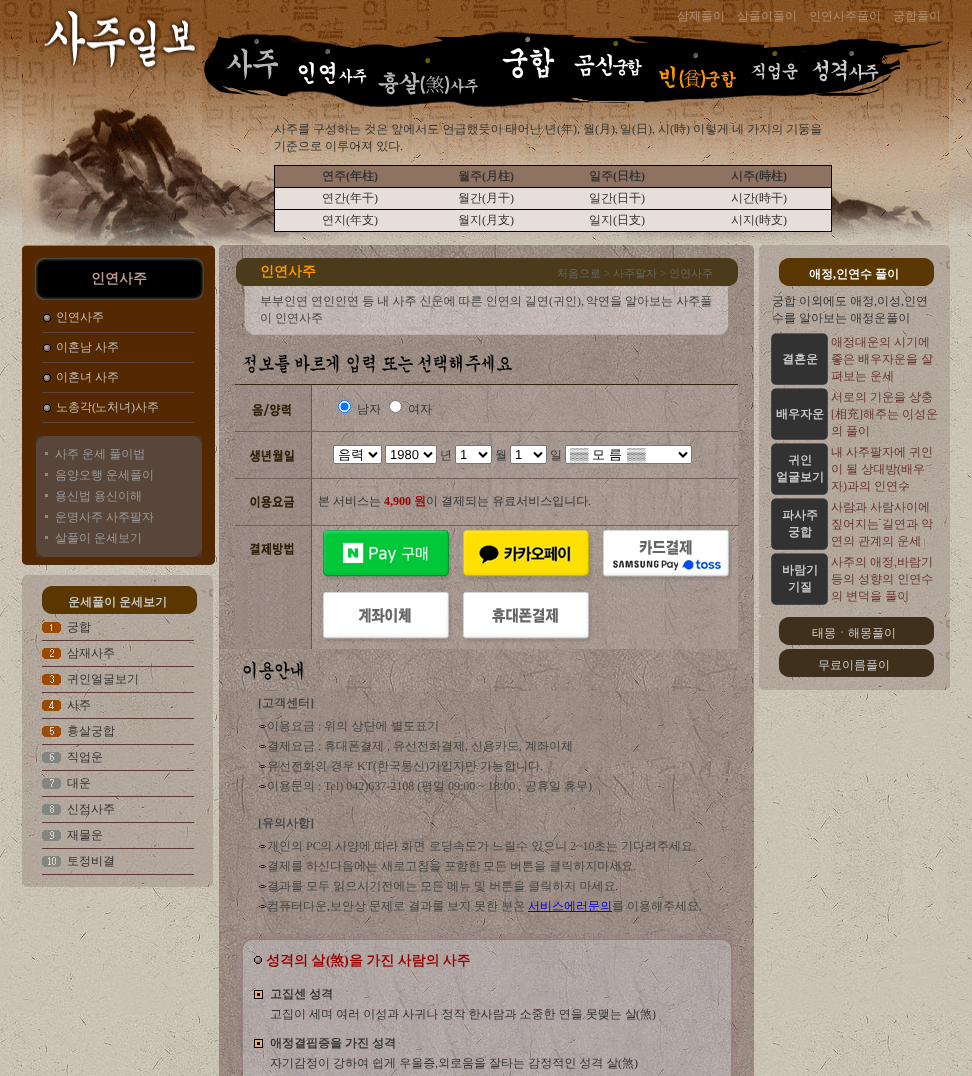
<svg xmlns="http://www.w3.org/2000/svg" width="972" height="1076">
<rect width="100%" height="100%" fill="#fff"/>
<image x="0" y="226" width="972" height="850" href="media/1.png"/>
<image x="0" y="0" width="972" height="226" href="media/2.png"/>
<image x="22" y="0" width="180" height="245" href="media/3.png"/>
<text x="677" y="20" style="font-family:WenQuanYi Zen Hei;font-size:12px;font-weight:500;fill:#b08e70">삼재풀이</text>
<text x="737" y="20" style="font-family:WenQuanYi Zen Hei;font-size:12px;font-weight:500;fill:#b08e70">살풀이풀이</text>
<text x="809" y="20" style="font-family:WenQuanYi Zen Hei;font-size:12px;font-weight:500;fill:#b08e70">인연사주풀이</text>
<text x="893" y="20" style="font-family:WenQuanYi Zen Hei;font-size:12px;font-weight:500;fill:#b08e70">궁합풀이</text>
<image x="202" y="30" width="89" height="78" href="media/4.png"/>
<image x="291" y="30" width="80" height="78" href="media/5.png"/>
<image x="371" y="30" width="119" height="78" href="media/6.png"/>
<image x="490" y="30" width="75" height="78" href="media/7.png"/>
<image x="565" y="30" width="86" height="78" href="media/8.png"/>
<image x="651" y="30" width="94" height="78" href="media/9.png"/>
<image x="745" y="30" width="61" height="78" href="media/10.png"/>
<image x="806" y="30" width="94" height="78" href="media/11.png"/>
<image x="900" y="30" width="49" height="78" href="media/12.png"/>
<image x="202" y="108" width="747" height="137" href="media/13.png"/>
<text x="274" y="133" word-spacing="-0.5" style="font-family:WenQuanYi Zen Hei;font-size:12px;font-weight:500;fill:#333">사주를 구성하는 것은 앞에서도 언급했듯이 태어난 년</text>
<text x="557" y="133" style="font-family:Liberation Serif;font-size:12px;fill:#333">(</text>
<text x="561" y="133" style="font-family:WenQuanYi Zen Hei;font-size:12px;font-weight:500;fill:#333">年</text>
<text x="573" y="133" style="font-family:Liberation Serif;font-size:12px;fill:#333">),</text>
<text x="583" y="133" style="font-family:WenQuanYi Zen Hei;font-size:12px;font-weight:500;fill:#333">월</text>
<text x="595" y="133" style="font-family:Liberation Serif;font-size:12px;fill:#333">(</text>
<text x="599" y="133" style="font-family:WenQuanYi Zen Hei;font-size:12px;font-weight:500;fill:#333">月</text>
<text x="611" y="133" style="font-family:Liberation Serif;font-size:12px;fill:#333">),</text>
<text x="620" y="133" style="font-family:WenQuanYi Zen Hei;font-size:12px;font-weight:500;fill:#333">일</text>
<text x="632" y="133" style="font-family:Liberation Serif;font-size:12px;fill:#333">(</text>
<text x="636" y="133" style="font-family:WenQuanYi Zen Hei;font-size:12px;font-weight:500;fill:#333">日</text>
<text x="648" y="133" style="font-family:Liberation Serif;font-size:12px;fill:#333">),</text>
<text x="658" y="133" style="font-family:WenQuanYi Zen Hei;font-size:12px;font-weight:500;fill:#333">시</text>
<text x="670" y="133" style="font-family:Liberation Serif;font-size:12px;fill:#333">(</text>
<text x="674" y="133" style="font-family:WenQuanYi Zen Hei;font-size:12px;font-weight:500;fill:#333">時</text>
<text x="686" y="133" style="font-family:Liberation Serif;font-size:12px;fill:#333">)</text>
<text x="693" y="133" word-spacing="-0.5" style="font-family:WenQuanYi Zen Hei;font-size:12px;font-weight:500;fill:#333">이렇게 네 가지의 기둥을</text>
<text x="274" y="150" word-spacing="-0.5" style="font-family:WenQuanYi Zen Hei;font-size:12px;font-weight:500;fill:#333">기준으로 이루어져 있다</text>
<text x="400" y="150" style="font-family:Liberation Serif;font-size:12px;fill:#333">.</text>
<rect x="274" y="165" width="558" height="67" fill="#000"/>
<rect x="275" y="166" width="556" height="21" fill="#8e7262"/>
<text x="322" y="180" style="font-family:WenQuanYi Zen Hei;font-size:12px;font-weight:bold;fill:#333">연주</text>
<text x="346" y="180" style="font-family:Liberation Serif;font-size:12px;font-weight:bold;fill:#333">(</text>
<text x="350" y="180" style="font-family:WenQuanYi Zen Hei;font-size:12px;font-weight:bold;fill:#333">年柱</text>
<text x="374" y="180" style="font-family:Liberation Serif;font-size:12px;font-weight:bold;fill:#333">)</text>
<text x="458" y="180" style="font-family:WenQuanYi Zen Hei;font-size:12px;font-weight:bold;fill:#333">월주</text>
<text x="482" y="180" style="font-family:Liberation Serif;font-size:12px;font-weight:bold;fill:#333">(</text>
<text x="486" y="180" style="font-family:WenQuanYi Zen Hei;font-size:12px;font-weight:bold;fill:#333">月柱</text>
<text x="510" y="180" style="font-family:Liberation Serif;font-size:12px;font-weight:bold;fill:#333">)</text>
<text x="589" y="180" style="font-family:WenQuanYi Zen Hei;font-size:12px;font-weight:bold;fill:#333">일주</text>
<text x="613" y="180" style="font-family:Liberation Serif;font-size:12px;font-weight:bold;fill:#333">(</text>
<text x="617" y="180" style="font-family:WenQuanYi Zen Hei;font-size:12px;font-weight:bold;fill:#333">日柱</text>
<text x="641" y="180" style="font-family:Liberation Serif;font-size:12px;font-weight:bold;fill:#333">)</text>
<text x="731" y="180" style="font-family:WenQuanYi Zen Hei;font-size:12px;font-weight:bold;fill:#333">시주</text>
<text x="755" y="180" style="font-family:Liberation Serif;font-size:12px;font-weight:bold;fill:#333">(</text>
<text x="759" y="180" style="font-family:WenQuanYi Zen Hei;font-size:12px;font-weight:bold;fill:#333">時柱</text>
<text x="783" y="180" style="font-family:Liberation Serif;font-size:12px;font-weight:bold;fill:#333">)</text>
<rect x="275" y="188" width="556" height="21" fill="#e6dfd9"/>
<text x="322" y="202" style="font-family:WenQuanYi Zen Hei;font-size:12px;font-weight:500;fill:#333">연간</text>
<text x="346" y="202" style="font-family:Liberation Serif;font-size:12px;fill:#333">(</text>
<text x="350" y="202" style="font-family:WenQuanYi Zen Hei;font-size:12px;font-weight:500;fill:#333">年干</text>
<text x="374" y="202" style="font-family:Liberation Serif;font-size:12px;fill:#333">)</text>
<text x="458" y="202" style="font-family:WenQuanYi Zen Hei;font-size:12px;font-weight:500;fill:#333">월간</text>
<text x="482" y="202" style="font-family:Liberation Serif;font-size:12px;fill:#333">(</text>
<text x="486" y="202" style="font-family:WenQuanYi Zen Hei;font-size:12px;font-weight:500;fill:#333">月干</text>
<text x="510" y="202" style="font-family:Liberation Serif;font-size:12px;fill:#333">)</text>
<text x="589" y="202" style="font-family:WenQuanYi Zen Hei;font-size:12px;font-weight:500;fill:#333">일간</text>
<text x="613" y="202" style="font-family:Liberation Serif;font-size:12px;fill:#333">(</text>
<text x="617" y="202" style="font-family:WenQuanYi Zen Hei;font-size:12px;font-weight:500;fill:#333">日干</text>
<text x="641" y="202" style="font-family:Liberation Serif;font-size:12px;fill:#333">)</text>
<text x="731" y="202" style="font-family:WenQuanYi Zen Hei;font-size:12px;font-weight:500;fill:#333">시간</text>
<text x="755" y="202" style="font-family:Liberation Serif;font-size:12px;fill:#333">(</text>
<text x="759" y="202" style="font-family:WenQuanYi Zen Hei;font-size:12px;font-weight:500;fill:#333">時干</text>
<text x="783" y="202" style="font-family:Liberation Serif;font-size:12px;fill:#333">)</text>
<rect x="275" y="210" width="556" height="21" fill="#e6dfd9"/>
<text x="322" y="224" style="font-family:WenQuanYi Zen Hei;font-size:12px;font-weight:500;fill:#333">연지</text>
<text x="346" y="224" style="font-family:Liberation Serif;font-size:12px;fill:#333">(</text>
<text x="350" y="224" style="font-family:WenQuanYi Zen Hei;font-size:12px;font-weight:500;fill:#333">年支</text>
<text x="374" y="224" style="font-family:Liberation Serif;font-size:12px;fill:#333">)</text>
<text x="458" y="224" style="font-family:WenQuanYi Zen Hei;font-size:12px;font-weight:500;fill:#333">월지</text>
<text x="482" y="224" style="font-family:Liberation Serif;font-size:12px;fill:#333">(</text>
<text x="486" y="224" style="font-family:WenQuanYi Zen Hei;font-size:12px;font-weight:500;fill:#333">月支</text>
<text x="510" y="224" style="font-family:Liberation Serif;font-size:12px;fill:#333">)</text>
<text x="589" y="224" style="font-family:WenQuanYi Zen Hei;font-size:12px;font-weight:500;fill:#333">일지</text>
<text x="613" y="224" style="font-family:Liberation Serif;font-size:12px;fill:#333">(</text>
<text x="617" y="224" style="font-family:WenQuanYi Zen Hei;font-size:12px;font-weight:500;fill:#333">日支</text>
<text x="641" y="224" style="font-family:Liberation Serif;font-size:12px;fill:#333">)</text>
<text x="731" y="224" style="font-family:WenQuanYi Zen Hei;font-size:12px;font-weight:500;fill:#333">시지</text>
<text x="755" y="224" style="font-family:Liberation Serif;font-size:12px;fill:#333">(</text>
<text x="759" y="224" style="font-family:WenQuanYi Zen Hei;font-size:12px;font-weight:500;fill:#333">時支</text>
<text x="783" y="224" style="font-family:Liberation Serif;font-size:12px;fill:#333">)</text>
<image x="22" y="245" width="193" height="12" href="media/14.png"/>
<image x="22" y="257" width="193" height="43" href="media/15.png"/>
<text x="91" y="283" style="font-family:WenQuanYi Zen Hei;font-size:14px;font-weight:bold;fill:#c29e8f">인연사주</text>
<rect x="22" y="300" width="193" height="257" fill="#542901"/>
<image x="43" y="314" width="8" height="8" href="media/16.png"/>
<text x="56" y="321" style="font-family:WenQuanYi Zen Hei;font-size:12px;font-weight:500;fill:#c0b9b4">인연사주</text>
<rect x="42" y="332" width="152" height="1" fill="#5c4340"/>
<image x="43" y="344" width="8" height="8" href="media/16.png"/>
<text x="56" y="351" word-spacing="-0.5" style="font-family:WenQuanYi Zen Hei;font-size:12px;font-weight:500;fill:#c0b9b4">이혼남 사주</text>
<rect x="42" y="362" width="152" height="1" fill="#5c4340"/>
<image x="43" y="374" width="8" height="8" href="media/16.png"/>
<text x="56" y="381" word-spacing="-0.5" style="font-family:WenQuanYi Zen Hei;font-size:12px;font-weight:500;fill:#c0b9b4">이혼녀 사주</text>
<rect x="42" y="392" width="152" height="1" fill="#5c4340"/>
<image x="43" y="404" width="8" height="8" href="media/16.png"/>
<text x="56" y="411" style="font-family:WenQuanYi Zen Hei;font-size:12px;font-weight:500;fill:#c0b9b4">노총각</text>
<text x="92" y="411" style="font-family:Liberation Serif;font-size:12px;fill:#c0b9b4">(</text>
<text x="95" y="411" style="font-family:WenQuanYi Zen Hei;font-size:12px;font-weight:500;fill:#c0b9b4">노처녀</text>
<text x="131" y="411" style="font-family:Liberation Serif;font-size:12px;fill:#c0b9b4">)</text>
<text x="135" y="411" style="font-family:WenQuanYi Zen Hei;font-size:12px;font-weight:500;fill:#c0b9b4">사주</text>
<rect x="42" y="422" width="152" height="1" fill="#5c4340"/>
<image x="36" y="436" width="166" height="8" href="media/17.png"/>
<rect x="36" y="444" width="166" height="105" fill="#58463a"/>
<rect x="45" y="452" width="3" height="3" fill="#8c8a8c"/>
<text x="55" y="458" word-spacing="-0.5" style="font-family:WenQuanYi Zen Hei;font-size:12px;font-weight:500;fill:#999">사주 운세 풀이법</text>
<rect x="45" y="473" width="3" height="3" fill="#8c8a8c"/>
<text x="55" y="479" word-spacing="-0.5" style="font-family:WenQuanYi Zen Hei;font-size:12px;font-weight:500;fill:#999">음양오행 운세풀이</text>
<rect x="45" y="494" width="3" height="3" fill="#8c8a8c"/>
<text x="55" y="500" word-spacing="-0.5" style="font-family:WenQuanYi Zen Hei;font-size:12px;font-weight:500;fill:#999">용신법 용신이해</text>
<rect x="45" y="515" width="3" height="3" fill="#8c8a8c"/>
<text x="55" y="521" style="font-family:WenQuanYi Zen Hei;font-size:12px;font-weight:500;fill:#999">운명사주</text>
<text x="106" y="521" style="font-family:WenQuanYi Zen Hei;font-size:12px;font-weight:500;fill:#999">사주팔자</text>
<rect x="45" y="536" width="3" height="3" fill="#8c8a8c"/>
<text x="55" y="542" word-spacing="-0.5" style="font-family:WenQuanYi Zen Hei;font-size:12px;font-weight:500;fill:#999">살풀이 운세보기</text>
<image x="36" y="549" width="166" height="8" href="media/18.png"/>
<image x="22" y="557" width="193" height="8" href="media/19.png"/>
<image x="22" y="575" width="191" height="11" href="media/20.png"/>
<image x="22" y="586" width="191" height="32" href="media/21.png"/>
<text x="68" y="606" word-spacing="-0.5" style="font-family:WenQuanYi Zen Hei;font-size:12px;font-weight:bold;fill:#ccc">운세풀이 운세보기</text>
<image x="22" y="618" width="191" height="260" href="media/22.png"/>
<image x="42" y="622" width="19" height="11" href="media/23.png"/>
<text x="67" y="631" style="font-family:WenQuanYi Zen Hei;font-size:12px;font-weight:500;fill:#333">궁합</text>
<rect x="42" y="640" width="152" height="1" fill="#5b3737"/>
<image x="42" y="648" width="19" height="11" href="media/24.png"/>
<text x="67" y="657" style="font-family:WenQuanYi Zen Hei;font-size:12px;font-weight:500;fill:#333">삼재사주</text>
<rect x="42" y="666" width="152" height="1" fill="#5b3737"/>
<image x="42" y="674" width="19" height="11" href="media/25.png"/>
<text x="67" y="683" style="font-family:WenQuanYi Zen Hei;font-size:12px;font-weight:500;fill:#333">귀인얼굴보기</text>
<rect x="42" y="692" width="152" height="1" fill="#5b3737"/>
<image x="42" y="700" width="19" height="11" href="media/26.png"/>
<text x="67" y="709" style="font-family:WenQuanYi Zen Hei;font-size:12px;font-weight:500;fill:#333">사주</text>
<rect x="42" y="718" width="152" height="1" fill="#5b3737"/>
<image x="42" y="726" width="19" height="11" href="media/27.png"/>
<text x="67" y="735" style="font-family:WenQuanYi Zen Hei;font-size:12px;font-weight:500;fill:#333">흉살궁합</text>
<rect x="42" y="744" width="152" height="1" fill="#5b3737"/>
<image x="42" y="752" width="19" height="11" href="media/28.png"/>
<text x="67" y="761" style="font-family:WenQuanYi Zen Hei;font-size:12px;font-weight:500;fill:#333">직업운</text>
<rect x="42" y="770" width="152" height="1" fill="#5b3737"/>
<image x="42" y="778" width="19" height="11" href="media/29.png"/>
<text x="67" y="787" style="font-family:WenQuanYi Zen Hei;font-size:12px;font-weight:500;fill:#333">대운</text>
<rect x="42" y="796" width="152" height="1" fill="#5b3737"/>
<image x="42" y="804" width="19" height="11" href="media/30.png"/>
<text x="67" y="813" style="font-family:WenQuanYi Zen Hei;font-size:12px;font-weight:500;fill:#333">신점사주</text>
<rect x="42" y="822" width="152" height="1" fill="#5b3737"/>
<image x="42" y="830" width="19" height="11" href="media/31.png"/>
<text x="67" y="839" style="font-family:WenQuanYi Zen Hei;font-size:12px;font-weight:500;fill:#333">재물운</text>
<rect x="42" y="848" width="152" height="1" fill="#5b3737"/>
<image x="42" y="856" width="19" height="11" href="media/32.png"/>
<text x="67" y="865" style="font-family:WenQuanYi Zen Hei;font-size:12px;font-weight:500;fill:#333">토정비결</text>
<rect x="42" y="874" width="152" height="1" fill="#5b3737"/>
<image x="22" y="878" width="191" height="9" href="media/33.png"/>
<image x="215" y="245" width="4" height="504" href="media/34.png"/>
<image x="219" y="245" width="535" height="13" href="media/35.png"/>
<image x="219" y="258" width="535" height="818" href="media/36.png"/>
<image x="236" y="258" width="502" height="28" href="media/37.png"/>
<text x="260" y="276" style="font-family:WenQuanYi Zen Hei;font-size:14px;font-weight:bold;fill:#f90">인연사주</text>
<text x="557" y="277" style="font-family:WenQuanYi Zen Hei;font-size:11px;font-weight:500;fill:#666">처음으로</text>
<text x="604" y="277" style="font-family:Liberation Serif;font-size:11px;fill:#666">&gt;</text>
<text x="613" y="277" style="font-family:WenQuanYi Zen Hei;font-size:11px;font-weight:500;fill:#666">사주팔자</text>
<text x="660" y="277" style="font-family:Liberation Serif;font-size:11px;fill:#666">&gt;</text>
<text x="669" y="277" style="font-family:WenQuanYi Zen Hei;font-size:11px;font-weight:500;fill:#666">인연사주</text>
<image x="235" y="286" width="503" height="41" href="media/38.png"/>
<text x="260" y="305" word-spacing="-0.5" style="font-family:WenQuanYi Zen Hei;font-size:12px;font-weight:500;fill:#444">부부인연 연인인연 등 내 사주 신운에 따른 인연의 길연</text>
<text x="549" y="305" style="font-family:Liberation Serif;font-size:12px;fill:#444">(</text>
<text x="553" y="305" style="font-family:WenQuanYi Zen Hei;font-size:12px;font-weight:500;fill:#444">귀인</text>
<text x="577" y="305" style="font-family:Liberation Serif;font-size:12px;fill:#444">),</text>
<text x="586" y="305" word-spacing="-0.5" style="font-family:WenQuanYi Zen Hei;font-size:12px;font-weight:500;fill:#444">악연을 알아보는 사주풀</text>
<text x="260" y="322" word-spacing="-0.5" style="font-family:WenQuanYi Zen Hei;font-size:12px;font-weight:500;fill:#444">이 인연사주</text>
<image x="235" y="327" width="503" height="8" href="media/39.png"/>
<image x="219" y="335" width="535" height="49" href="media/40.png"/>
<image x="235" y="384" width="503" height="265" href="media/41.png"/>
<circle cx="344.5" cy="406.5" r="6" fill="#fff" stroke="#0075ff"/>
<circle cx="344.5" cy="406.5" r="4" fill="#0075ff"/>
<text x="357" y="413" style="font-family:WenQuanYi Zen Hei;font-size:12px;font-weight:500;fill:#333">남자</text>
<circle cx="395.5" cy="406.5" r="6" fill="#fff" stroke="#767676"/>
<text x="408" y="413" style="font-family:WenQuanYi Zen Hei;font-size:12px;font-weight:500;fill:#333">여자</text>
<rect x="333.5" y="445.5" width="48" height="18" rx="1.5" fill="#fff" stroke="#767676"/>
<path d="M369 452.5l4 4l4-4" fill="none" stroke="#000" stroke-width="2"/>
<text x="338" y="459" style="font-family:WenQuanYi Zen Hei;font-size:13px;font-weight:500;fill:#000">음력</text>
<rect x="385.5" y="445.5" width="51" height="18" rx="1.5" fill="#fff" stroke="#767676"/>
<path d="M424 452.5l4 4l4-4" fill="none" stroke="#000" stroke-width="2"/>
<text x="390" y="459" style="font-family:Liberation Sans;font-size:13px;fill:#000">1980</text>
<text x="440" y="459" style="font-family:WenQuanYi Zen Hei;font-size:12px;font-weight:500;fill:#333">년</text>
<rect x="455.5" y="445.5" width="36" height="18" rx="1.5" fill="#fff" stroke="#767676"/>
<path d="M479 452.5l4 4l4-4" fill="none" stroke="#000" stroke-width="2"/>
<text x="460" y="459" style="font-family:Liberation Sans;font-size:13px;fill:#000">1</text>
<text x="495" y="459" style="font-family:WenQuanYi Zen Hei;font-size:12px;font-weight:500;fill:#333">월</text>
<rect x="510.5" y="445.5" width="36" height="18" rx="1.5" fill="#fff" stroke="#767676"/>
<path d="M534 452.5l4 4l4-4" fill="none" stroke="#000" stroke-width="2"/>
<text x="515" y="459" style="font-family:Liberation Sans;font-size:13px;fill:#000">1</text>
<text x="550" y="459" style="font-family:WenQuanYi Zen Hei;font-size:12px;font-weight:500;fill:#333">일</text>
<rect x="565.5" y="445.5" width="126" height="18" rx="1.5" fill="#fff" stroke="#767676"/>
<path d="M679 452.5l4 4l4-4" fill="none" stroke="#000" stroke-width="2"/>
<text x="570" y="459" style="font-family:Liberation Sans;font-size:13px;fill:#000">▒▒</text>
<text x="592" y="459" style="font-family:WenQuanYi Zen Hei;font-size:13px;font-weight:500;fill:#000">모 름</text>
<text x="627" y="459" style="font-family:Liberation Sans;font-size:13px;fill:#000">▒▒</text>
<text x="318" y="505" word-spacing="-0.5" style="font-family:WenQuanYi Zen Hei;font-size:12px;font-weight:500;fill:#333">본 서비스는</text>
<text x="384" y="505" style="font-family:Liberation Serif;font-size:12px;font-weight:bold;fill:#900">4,900</text>
<text x="414" y="505" style="font-family:WenQuanYi Zen Hei;font-size:12px;font-weight:bold;fill:#900">원</text>
<text x="426" y="505" word-spacing="-0.5" style="font-family:WenQuanYi Zen Hei;font-size:12px;font-weight:500;fill:#333">이 결제되는 유료서비스입니다</text>
<text x="588" y="505" style="font-family:Liberation Serif;font-size:12px;fill:#333">.</text>
<image x="323" y="530" width="129" height="50" href="media/42.png"/>
<image x="463" y="530" width="130" height="52" href="media/43.png"/>
<image x="603" y="530" width="129" height="51" href="media/44.png"/>
<image x="323" y="592" width="129" height="51" href="media/45.png"/>
<image x="463" y="592" width="129" height="51" href="media/46.png"/>
<image x="219" y="649" width="535" height="42" href="media/47.png"/>
<text x="258" y="707" style="font-family:Liberation Serif;font-size:12px;font-weight:bold;fill:#444">[</text>
<text x="262" y="707" style="font-family:WenQuanYi Zen Hei;font-size:12px;font-weight:bold;fill:#444">고객센터</text>
<text x="310" y="707" style="font-family:Liberation Serif;font-size:12px;font-weight:bold;fill:#444">]</text>
<image x="259" y="725" width="8" height="3" href="media/48.png"/>
<text x="267" y="730" style="font-family:WenQuanYi Zen Hei;font-size:12px;font-weight:500;fill:#444">이용요금</text>
<text x="318" y="730" style="font-family:Liberation Serif;font-size:12px;fill:#444">:</text>
<text x="324" y="730" style="font-family:WenQuanYi Zen Hei;font-size:12px;font-weight:500;fill:#444">위의 상단에 별도표기</text>
<image x="259" y="745" width="8" height="3" href="media/49.png"/>
<text x="267" y="750" style="font-family:WenQuanYi Zen Hei;font-size:12px;font-weight:500;fill:#444">결제요금</text>
<text x="318" y="750" style="font-family:Liberation Serif;font-size:12px;fill:#444">:</text>
<text x="324" y="750" style="font-family:WenQuanYi Zen Hei;font-size:12px;font-weight:500;fill:#444">휴대폰결제</text>
<text x="387" y="750" style="font-family:Liberation Serif;font-size:12px;fill:#444">,</text>
<text x="393" y="750" style="font-family:WenQuanYi Zen Hei;font-size:12px;font-weight:500;fill:#444">유선전화결제</text>
<text x="465" y="750" style="font-family:Liberation Serif;font-size:12px;fill:#444">,</text>
<text x="471" y="750" style="font-family:WenQuanYi Zen Hei;font-size:12px;font-weight:500;fill:#444">신용카드</text>
<text x="519" y="750" style="font-family:Liberation Serif;font-size:12px;fill:#444">,</text>
<text x="525" y="750" style="font-family:WenQuanYi Zen Hei;font-size:12px;font-weight:500;fill:#444">계좌이체</text>
<image x="259" y="765" width="8" height="3" href="media/50.png"/>
<text x="267" y="770" style="font-family:WenQuanYi Zen Hei;font-size:12px;font-weight:500;fill:#444">유선전화의 경우</text>
<text x="357" y="770" style="font-family:Liberation Serif;font-size:12px;fill:#444">KT(</text>
<text x="377" y="770" style="font-family:WenQuanYi Zen Hei;font-size:12px;font-weight:500;fill:#444">한국통신</text>
<text x="425" y="770" style="font-family:Liberation Serif;font-size:12px;fill:#444">)</text>
<text x="429" y="770" style="font-family:WenQuanYi Zen Hei;font-size:12px;font-weight:500;fill:#444">가입자만</text>
<text x="480" y="770" style="font-family:WenQuanYi Zen Hei;font-size:12px;font-weight:500;fill:#444">가능합니다</text>
<text x="540" y="770" style="font-family:Liberation Serif;font-size:12px;fill:#444">.</text>
<image x="259" y="785" width="8" height="3" href="media/51.png"/>
<text x="267" y="790" style="font-family:WenQuanYi Zen Hei;font-size:12px;font-weight:500;fill:#444">이용문의</text>
<text x="318" y="790" style="font-family:Liberation Serif;font-size:12px;fill:#444">: Tel) 042)637-2108 (</text>
<text x="421" y="790" style="font-family:WenQuanYi Zen Hei;font-size:12px;font-weight:500;fill:#444">평일</text>
<text x="448" y="790" style="font-family:Liberation Serif;font-size:12px;fill:#444">09:00 ~ 18:00 ,</text>
<text x="525" y="790" style="font-family:WenQuanYi Zen Hei;font-size:12px;font-weight:500;fill:#444">공휴일</text>
<text x="564" y="790" style="font-family:WenQuanYi Zen Hei;font-size:12px;font-weight:500;fill:#444">휴무</text>
<text x="588" y="790" style="font-family:Liberation Serif;font-size:12px;fill:#444">)</text>
<text x="258" y="827" style="font-family:Liberation Serif;font-size:12px;font-weight:bold;fill:#444">[</text>
<text x="262" y="827" style="font-family:WenQuanYi Zen Hei;font-size:12px;font-weight:bold;fill:#444">유의사항</text>
<text x="310" y="827" style="font-family:Liberation Serif;font-size:12px;font-weight:bold;fill:#444">]</text>
<image x="259" y="845" width="8" height="3" href="media/52.png"/>
<text x="267" y="850" style="font-family:WenQuanYi Zen Hei;font-size:12px;font-weight:500;fill:#444">개인의</text>
<text x="306" y="850" style="font-family:Liberation Serif;font-size:12px;fill:#444">PC</text>
<text x="320" y="850" word-spacing="-0.5" style="font-family:WenQuanYi Zen Hei;font-size:12px;font-weight:500;fill:#444">의 사양에 따라 화면</text>
<text x="429" y="850" word-spacing="-0.5" style="font-family:WenQuanYi Zen Hei;font-size:12px;font-weight:500;fill:#444">로딩속도가 느릴수 있으니</text>
<text x="570" y="850" style="font-family:Liberation Serif;font-size:12px;fill:#444">2~10</text>
<text x="594" y="850" word-spacing="-0.5" style="font-family:WenQuanYi Zen Hei;font-size:12px;font-weight:500;fill:#444">초는 기다려주세요</text>
<text x="693" y="850" style="font-family:Liberation Serif;font-size:12px;fill:#444">.</text>
<image x="259" y="865" width="8" height="3" href="media/53.png"/>
<text x="267" y="870" word-spacing="-0.5" style="font-family:WenQuanYi Zen Hei;font-size:12px;font-weight:500;fill:#444">결제를 하신다음에는 새로고침을 포함한</text>
<text x="483" y="870" word-spacing="-0.5" style="font-family:WenQuanYi Zen Hei;font-size:12px;font-weight:500;fill:#444">모든 버튼을 클릭하지마세요</text>
<text x="633" y="870" style="font-family:Liberation Serif;font-size:12px;fill:#444">.</text>
<image x="259" y="885" width="8" height="3" href="media/54.png"/>
<text x="267" y="890" word-spacing="-0.5" style="font-family:WenQuanYi Zen Hei;font-size:12px;font-weight:500;fill:#444">결과를 모두 읽으시기전에는 모든</text>
<text x="447" y="890" word-spacing="-0.5" style="font-family:WenQuanYi Zen Hei;font-size:12px;font-weight:500;fill:#444">메뉴 및 버튼을 클릭하지 마세요</text>
<text x="615" y="890" style="font-family:Liberation Serif;font-size:12px;fill:#444">.</text>
<image x="259" y="905" width="8" height="3" href="media/55.png"/>
<text x="267" y="910" style="font-family:WenQuanYi Zen Hei;font-size:12px;font-weight:500;fill:#444">컴퓨터다운</text>
<text x="327" y="910" style="font-family:Liberation Serif;font-size:12px;fill:#444">,</text>
<text x="330" y="910" word-spacing="-0.5" style="font-family:WenQuanYi Zen Hei;font-size:12px;font-weight:500;fill:#444">보안상 문제로 결과를</text>
<text x="447" y="910" word-spacing="-0.5" style="font-family:WenQuanYi Zen Hei;font-size:12px;font-weight:500;fill:#444">보지 못한 분은</text>
<rect x="528" y="911" width="84" height="1" fill="#00e"/>
<text x="528" y="910" style="font-family:WenQuanYi Zen Hei;font-size:12px;font-weight:500;fill:#00e">서비스에러문의</text>
<text x="612" y="910" word-spacing="-0.5" style="font-family:WenQuanYi Zen Hei;font-size:12px;font-weight:500;fill:#444">를 이용해주세요</text>
<text x="699" y="910" style="font-family:Liberation Serif;font-size:12px;fill:#444">.</text>
<image x="237" y="934" width="500" height="18" href="media/56.png"/>
<image x="237" y="952" width="500" height="124" href="media/57.png"/>
<image x="254" y="956" width="8" height="8" href="media/58.png"/>
<text x="266" y="965" word-spacing="-1" style="font-family:WenQuanYi Zen Hei;font-size:14px;font-weight:bold;fill:#900">성격의 살</text>
<text x="326" y="965" style="font-family:Liberation Serif;font-size:14px;font-weight:bold;fill:#900">(</text>
<text x="330" y="965" style="font-family:WenQuanYi Zen Hei;font-size:14px;font-weight:bold;fill:#900">煞</text>
<text x="344" y="965" style="font-family:Liberation Serif;font-size:14px;font-weight:bold;fill:#900">)</text>
<text x="349" y="965" word-spacing="-1" style="font-family:WenQuanYi Zen Hei;font-size:14px;font-weight:bold;fill:#900">을 가진 사람의 사주</text>
<image x="254" y="990" width="9" height="9" href="media/59.png"/>
<text x="270" y="998" word-spacing="-0.5" style="font-family:WenQuanYi Zen Hei;font-size:12px;font-weight:bold;fill:#333">고집센 성격</text>
<text x="270" y="1018" style="font-family:WenQuanYi Zen Hei;font-size:12px;font-weight:500;fill:#333">고집이</text>
<text x="309" y="1018" word-spacing="-0.5" style="font-family:WenQuanYi Zen Hei;font-size:12px;font-weight:500;fill:#333">세며 여러 이성과 사귀나 정작 한사람과 소중한 연을 못맺는 살</text>
<text x="636" y="1018" style="font-family:Liberation Serif;font-size:12px;fill:#333">(</text>
<text x="640" y="1018" style="font-family:WenQuanYi Zen Hei;font-size:12px;font-weight:500;fill:#333">煞</text>
<text x="652" y="1018" style="font-family:Liberation Serif;font-size:12px;fill:#333">)</text>
<image x="254" y="1039" width="9" height="9" href="media/59.png"/>
<text x="270" y="1047" style="font-family:WenQuanYi Zen Hei;font-size:12px;font-weight:bold;fill:#333">애정결핍증을</text>
<text x="345" y="1047" word-spacing="-0.5" style="font-family:WenQuanYi Zen Hei;font-size:12px;font-weight:bold;fill:#333">가진 성격</text>
<text x="270" y="1067" style="font-family:WenQuanYi Zen Hei;font-size:12px;font-weight:500;fill:#333">자기감정이</text>
<text x="333" y="1067" word-spacing="-0.5" style="font-family:WenQuanYi Zen Hei;font-size:12px;font-weight:500;fill:#333">강하여 쉽게 우울증</text>
<text x="435" y="1067" style="font-family:Liberation Serif;font-size:12px;fill:#333">,</text>
<text x="438" y="1067" word-spacing="-0.5" style="font-family:WenQuanYi Zen Hei;font-size:12px;font-weight:500;fill:#333">외로움을 잘타는 감정적인 성격 살</text>
<text x="618" y="1067" style="font-family:Liberation Serif;font-size:12px;fill:#333">(</text>
<text x="622" y="1067" style="font-family:WenQuanYi Zen Hei;font-size:12px;font-weight:500;fill:#333">煞</text>
<text x="634" y="1067" style="font-family:Liberation Serif;font-size:12px;fill:#333">)</text>
<image x="754" y="245" width="5" height="504" href="media/60.png"/>
<image x="759" y="245" width="191" height="13" href="media/61.png"/>
<image x="759" y="258" width="191" height="32" href="media/21.png"/>
<text x="809" y="278" style="font-family:WenQuanYi Zen Hei;font-size:12px;font-weight:bold;fill:#fff">애정</text>
<text x="833" y="278" style="font-family:Liberation Serif;font-size:12px;font-weight:bold;fill:#fff">,</text>
<text x="836" y="278" word-spacing="-0.5" style="font-family:WenQuanYi Zen Hei;font-size:12px;font-weight:bold;fill:#fff">인연수 풀이</text>
<image x="759" y="290" width="191" height="40" href="media/62.png"/>
<text x="772" y="305" word-spacing="-0.5" style="font-family:WenQuanYi Zen Hei;font-size:12px;font-weight:500;fill:#333">궁합 이외에도 애정</text>
<text x="874" y="305" style="font-family:Liberation Serif;font-size:12px;fill:#333">,</text>
<text x="877" y="305" style="font-family:WenQuanYi Zen Hei;font-size:12px;font-weight:500;fill:#333">이성</text>
<text x="901" y="305" style="font-family:Liberation Serif;font-size:12px;fill:#333">,</text>
<text x="904" y="305" style="font-family:WenQuanYi Zen Hei;font-size:12px;font-weight:500;fill:#333">인연</text>
<text x="772" y="322" word-spacing="-0.5" style="font-family:WenQuanYi Zen Hei;font-size:12px;font-weight:500;fill:#333">수를 알아보는 애정운풀이</text>
<image x="759" y="330" width="191" height="278" href="media/63.png"/>
<image x="771" y="333" width="57" height="52" href="media/64.png"/>
<text x="782" y="363" style="font-family:WenQuanYi Zen Hei;font-size:12px;font-weight:bold;fill:#ccc">결혼운</text>
<text x="831" y="346" style="font-family:WenQuanYi Zen Hei;font-size:12px;font-weight:500;fill:#633">애정대운의</text>
<text x="894" y="346" style="font-family:WenQuanYi Zen Hei;font-size:12px;font-weight:500;fill:#633">시기에</text>
<text x="831" y="363" word-spacing="-0.5" style="font-family:WenQuanYi Zen Hei;font-size:12px;font-weight:500;fill:#633">좋은 배우자운을 살</text>
<text x="831" y="380" word-spacing="-0.5" style="font-family:WenQuanYi Zen Hei;font-size:12px;font-weight:500;fill:#633">펴보는 운세</text>
<image x="771" y="388" width="57" height="52" href="media/64.png"/>
<text x="776" y="418" style="font-family:WenQuanYi Zen Hei;font-size:12px;font-weight:bold;fill:#ccc">배우자운</text>
<text x="831" y="401" style="font-family:WenQuanYi Zen Hei;font-size:12px;font-weight:500;fill:#633">서로의</text>
<text x="870" y="401" word-spacing="-0.5" style="font-family:WenQuanYi Zen Hei;font-size:12px;font-weight:500;fill:#633">기운을 상충</text>
<text x="831" y="418" style="font-family:Liberation Serif;font-size:12px;fill:#633">[</text>
<text x="835" y="418" style="font-family:WenQuanYi Zen Hei;font-size:12px;font-weight:500;fill:#633">相充</text>
<text x="859" y="418" style="font-family:Liberation Serif;font-size:12px;fill:#633">]</text>
<text x="863" y="418" word-spacing="-0.5" style="font-family:WenQuanYi Zen Hei;font-size:12px;font-weight:500;fill:#633">해주는 이성운</text>
<text x="831" y="435" word-spacing="-0.5" style="font-family:WenQuanYi Zen Hei;font-size:12px;font-weight:500;fill:#633">의 풀이</text>
<image x="771" y="443" width="57" height="52" href="media/64.png"/>
<text x="788" y="464" style="font-family:WenQuanYi Zen Hei;font-size:12px;font-weight:bold;fill:#ccc">귀인</text>
<text x="776" y="481" style="font-family:WenQuanYi Zen Hei;font-size:12px;font-weight:bold;fill:#ccc">얼굴보기</text>
<text x="831" y="456" style="font-family:WenQuanYi Zen Hei;font-size:12px;font-weight:500;fill:#633">내</text>
<text x="846" y="456" word-spacing="-0.5" style="font-family:WenQuanYi Zen Hei;font-size:12px;font-weight:500;fill:#633">사주팔자에 귀인</text>
<text x="831" y="473" word-spacing="-0.5" style="font-family:WenQuanYi Zen Hei;font-size:12px;font-weight:500;fill:#633">이 될 상대방</text>
<text x="897" y="473" style="font-family:Liberation Serif;font-size:12px;fill:#633">(</text>
<text x="901" y="473" style="font-family:WenQuanYi Zen Hei;font-size:12px;font-weight:500;fill:#633">배우</text>
<text x="831" y="490" style="font-family:WenQuanYi Zen Hei;font-size:12px;font-weight:500;fill:#633">자</text>
<text x="843" y="490" style="font-family:Liberation Serif;font-size:12px;fill:#633">)</text>
<text x="847" y="490" word-spacing="-0.5" style="font-family:WenQuanYi Zen Hei;font-size:12px;font-weight:500;fill:#633">과의 인연수</text>
<image x="771" y="498" width="57" height="52" href="media/64.png"/>
<text x="782" y="519" style="font-family:WenQuanYi Zen Hei;font-size:12px;font-weight:bold;fill:#ccc">파사주</text>
<text x="788" y="536" style="font-family:WenQuanYi Zen Hei;font-size:12px;font-weight:bold;fill:#ccc">궁합</text>
<text x="831" y="511" style="font-family:WenQuanYi Zen Hei;font-size:12px;font-weight:500;fill:#633">사람과</text>
<text x="870" y="511" style="font-family:WenQuanYi Zen Hei;font-size:12px;font-weight:500;fill:#633">사람사이에</text>
<text x="831" y="528" word-spacing="-0.5" style="font-family:WenQuanYi Zen Hei;font-size:12px;font-weight:500;fill:#633">짚어지는 길연과 악</text>
<text x="831" y="545" word-spacing="-0.5" style="font-family:WenQuanYi Zen Hei;font-size:12px;font-weight:500;fill:#633">연의 관계의 운세</text>
<image x="771" y="553" width="57" height="52" href="media/64.png"/>
<text x="782" y="574" style="font-family:WenQuanYi Zen Hei;font-size:12px;font-weight:bold;fill:#ccc">바람기</text>
<text x="788" y="591" style="font-family:WenQuanYi Zen Hei;font-size:12px;font-weight:bold;fill:#ccc">기질</text>
<text x="831" y="566" style="font-family:WenQuanYi Zen Hei;font-size:12px;font-weight:500;fill:#633">사주의</text>
<text x="870" y="566" style="font-family:WenQuanYi Zen Hei;font-size:12px;font-weight:500;fill:#633">애정</text>
<text x="894" y="566" style="font-family:Liberation Serif;font-size:12px;fill:#633">,</text>
<text x="897" y="566" style="font-family:WenQuanYi Zen Hei;font-size:12px;font-weight:500;fill:#633">바람기</text>
<text x="831" y="583" word-spacing="-0.5" style="font-family:WenQuanYi Zen Hei;font-size:12px;font-weight:500;fill:#633">등의 성향의 인연수</text>
<text x="831" y="600" word-spacing="-0.5" style="font-family:WenQuanYi Zen Hei;font-size:12px;font-weight:500;fill:#633">의 변덕을 풀이</text>
<image x="759" y="608" width="191" height="9" href="media/33.png"/>
<image x="759" y="617" width="191" height="32" href="media/65.png"/>
<text x="812" y="637" style="font-family:WenQuanYi Zen Hei;font-size:12px;font-weight:500;fill:#ccc">태몽ㆍ해몽풀이</text>
<image x="759" y="649" width="191" height="32" href="media/65.png"/>
<text x="818" y="669" style="font-family:WenQuanYi Zen Hei;font-size:12px;font-weight:500;fill:#ccc">무료이름풀이</text>
<image x="759" y="681" width="191" height="9" href="media/33.png"/>
</svg>
